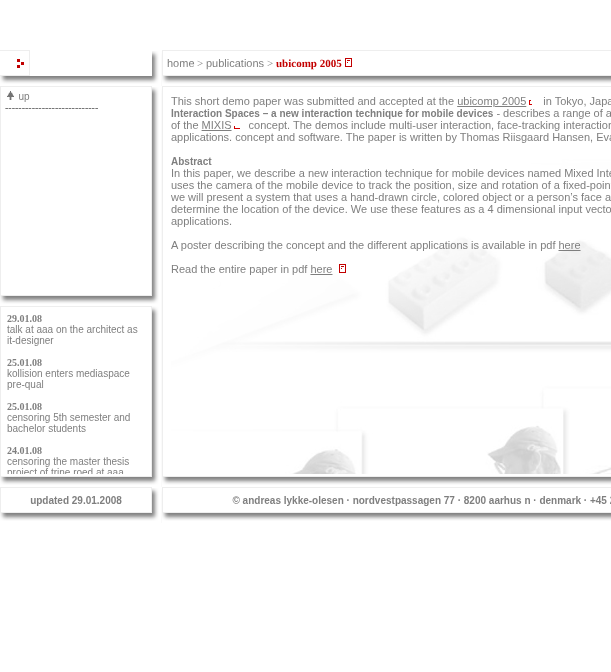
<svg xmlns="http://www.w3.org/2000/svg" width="611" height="672">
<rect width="100%" height="100%" fill="#fff"/>
<rect y="50" width="30" height="26" fill="#eee"/>
<rect y="51" width="29" height="24" fill="#fff"/>
<image x="17" y="59" width="7" height="9" href="media/1.png"/>
<image x="152" y="51" width="10" height="25" href="media/2.png"/>
<rect x="162" y="50" width="449" height="26" fill="#eee"/>
<rect x="163" y="51" width="448" height="24" fill="#fff"/>
<text x="167" y="67" style="font-family:Liberation Sans;font-size:11px;fill:#7f7f7f">home</text>
<text x="197" y="67" style="font-family:Liberation Serif;font-size:11px;fill:#7f7f7f">&gt;</text>
<text x="206" y="67" style="font-family:Liberation Sans;font-size:11px;fill:#7f7f7f">publications</text>
<text x="267" y="67" style="font-family:Liberation Serif;font-size:11px;fill:#7f7f7f">&gt;</text>
<text x="276" y="67" style="font-family:Liberation Serif;font-size:11px;font-weight:bold;fill:#c30000">ubicomp 2005</text>
<image x="345" y="58" width="7" height="9" href="media/3.png"/>
<image x="0" y="76" width="152" height="8" href="media/4.png"/>
<image x="152" y="76" width="10" height="10" href="media/5.png"/>
<image x="162" y="76" width="449" height="8" href="media/6.png"/>
<rect y="86" width="152" height="210" fill="#eee"/>
<rect x="1" y="87" width="150" height="208" fill="#fff"/>
<image x="5" y="91" width="93" height="18" href="media/7.png"/>
<image x="0" y="296" width="152" height="8" href="media/4.png"/>
<rect y="306" width="152" height="171" fill="#eee"/>
<rect x="1" y="307" width="150" height="169" fill="#fff"/>
<image x="7" y="315" width="131" height="159" href="media/8.png"/>
<image x="152" y="87" width="10" height="390" href="media/9.png"/>
<rect x="162" y="86" width="449" height="391" fill="#eee"/>
<rect x="163" y="87" width="448" height="389" fill="#fff"/>
<image x="171" y="97" width="440" height="377" href="media/10.png"/>
<image x="0" y="477" width="152" height="8" href="media/4.png"/>
<image x="152" y="477" width="10" height="10" href="media/5.png"/>
<image x="162" y="477" width="449" height="8" href="media/6.png"/>
<rect y="487" width="152" height="26" fill="#eee"/>
<rect x="1" y="488" width="150" height="24" fill="#fff"/>
<image x="30" y="496" width="92" height="10" href="media/11.png"/>
<image x="152" y="488" width="10" height="25" href="media/2.png"/>
<rect x="162" y="487" width="449" height="26" fill="#eee"/>
<rect x="163" y="488" width="448" height="24" fill="#fff"/>
<image x="232" y="496" width="379" height="10" href="media/12.png"/>
<image x="0" y="513" width="152" height="8" href="media/4.png"/>
<image x="152" y="513" width="10" height="10" href="media/5.png"/>
<image x="162" y="513" width="449" height="8" href="media/6.png"/>
</svg>
